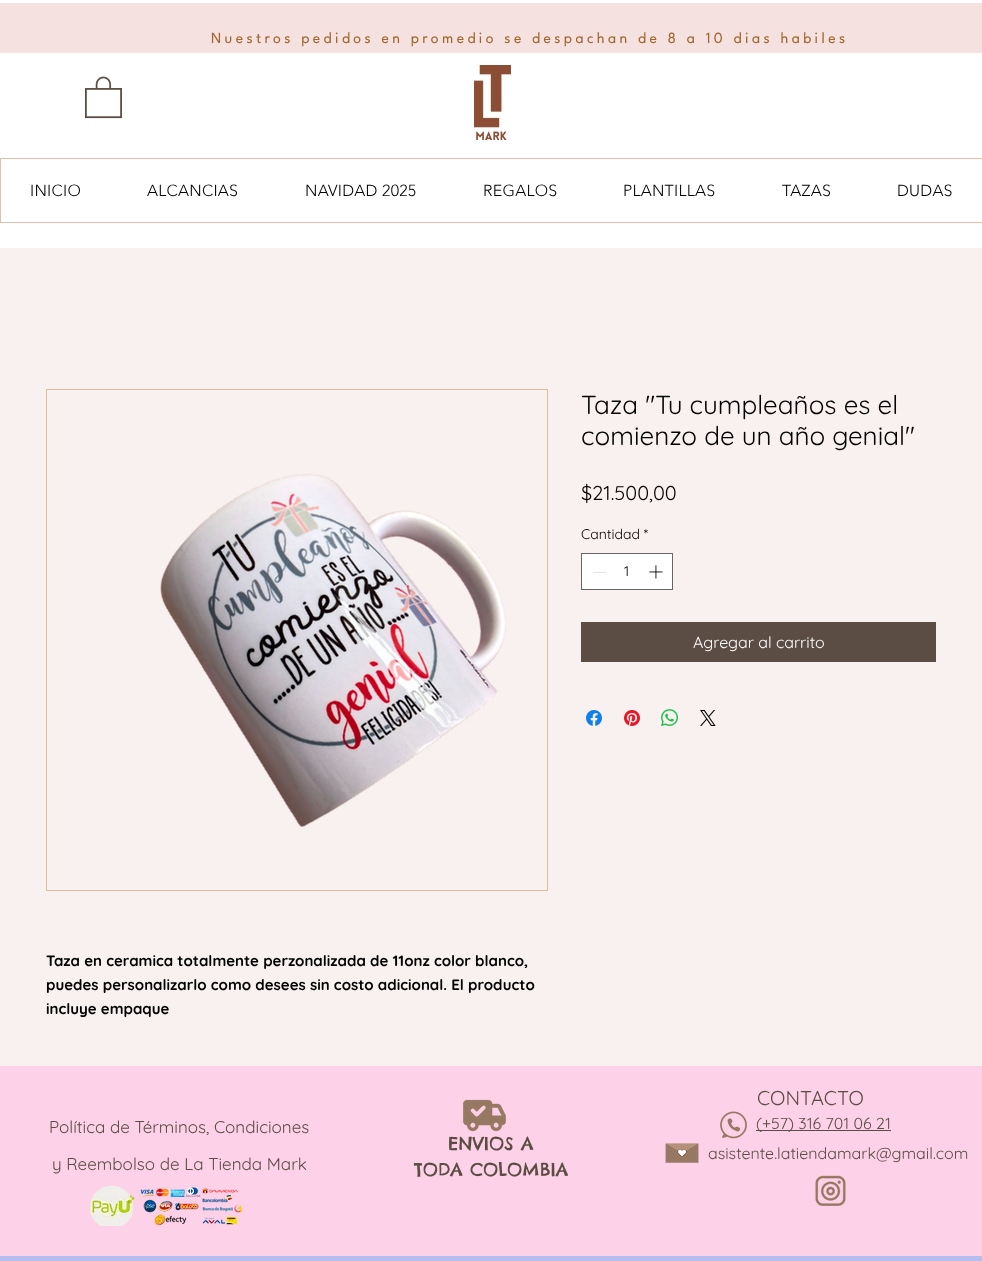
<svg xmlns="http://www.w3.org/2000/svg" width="982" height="1261">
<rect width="100%" height="100%" fill="#b5bcf0"/>
<rect width="982" height="248" fill="#fff"/>
<rect y="3" width="982" height="50" fill="#f4e1e0"/>
<text x="211" y="43" style="font-family:League Spartan;font-size:15px;font-weight:bold;letter-spacing:3.75px;fill:#a2672d">Nuestros pedidos en promedio se despachan de 8 a 10 dias habiles</text>
<image x="85" y="76" width="37" height="43" href="media/1.png"/>
<image x="474" y="65" width="37" height="75" href="media/2.png"/>
<rect x="0.5" y="158.5" width="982" height="64" fill="none" stroke="#e4bfad"/>
<text x="30" y="196" style="font-family:'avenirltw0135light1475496';font-size:16px;font-weight:300;letter-spacing:0.25px;fill:#000">INICIO</text>
<text x="147" y="196" style="font-family:'avenirltw0135light1475496';font-size:16px;font-weight:300;letter-spacing:0.25px;fill:#000">ALCANCIAS</text>
<text x="305" y="196" style="font-family:'avenirltw0135light1475496';font-size:16px;font-weight:300;letter-spacing:0.25px;fill:#000">NAVIDAD 2025</text>
<text x="483" y="196" style="font-family:'avenirltw0135light1475496';font-size:16px;font-weight:300;letter-spacing:0.25px;fill:#000">REGALOS</text>
<text x="623" y="196" style="font-family:'avenirltw0135light1475496';font-size:16px;font-weight:300;letter-spacing:0.25px;fill:#000">PLANTILLAS</text>
<text x="782" y="196" style="font-family:'avenirltw0135light1475496';font-size:16px;font-weight:300;letter-spacing:0.25px;fill:#000">TAZAS</text>
<text x="897" y="196" style="font-family:'avenirltw0135light1475496';font-size:16px;font-weight:300;letter-spacing:0.25px;fill:#000">DUDAS</text>
<rect y="248" width="982" height="818" fill="#f8f1f0"/>
<text x="581" y="414" style="font-family:Quicksand;font-size:26px;fill:#000">Taza "Tu cumpleaños es el</text>
<text x="581" y="445" style="font-family:Quicksand;font-size:26px;fill:#000">comienzo de un año genial"</text>
<text x="581" y="500" style="font-family:Quicksand;font-size:20px;fill:#000">$21.500,00</text>
<text x="581" y="539" style="font-family:Quicksand;font-size:14px;fill:#000">Cantidad *</text>
<rect x="581.5" y="553.5" width="91" height="36" fill="#fff" stroke="#666"/>
<rect x="593" y="572" width="13" height="1" fill="#e3e3e3"/>
<text x="624" y="576" style="font-family:Quicksand;font-size:14px;fill:#000">1</text>
<image x="649" y="565" width="14" height="14" href="media/3.png"/>
<rect x="581" y="622" width="355" height="40" fill="#5b4d43"/>
<text x="693" y="648" style="font-family:Quicksand;font-size:16px;fill:#fff">Agregar al carrito</text>
<image x="586" y="710" width="16" height="16" href="media/4.png"/>
<image x="624" y="710" width="16" height="16" href="media/5.png"/>
<image x="661" y="709" width="17" height="17" href="media/6.png"/>
<image x="700" y="710" width="16" height="16" href="media/7.png"/>
<rect x="46.5" y="389.5" width="501" height="501" fill="none" stroke="#e0be9a"/>
<image x="160" y="473" width="346" height="355" href="media/8.png"/>
<text x="46" y="966" style="font-family:Quicksand;font-size:15px;font-weight:bold;fill:#000">Taza en ceramica totalmente perzonalizada de 11onz color blanco,</text>
<text x="46" y="990" style="font-family:Quicksand;font-size:15px;font-weight:bold;fill:#000">puedes personalizarlo como desees sin costo adicional. El producto</text>
<text x="46" y="1014" style="font-family:Quicksand;font-size:15px;font-weight:bold;fill:#000">incluye empaque</text>
<rect y="1066" width="982" height="190" fill="#fdd1e7"/>
<image x="463" y="1099" width="43" height="33" href="media/9.png"/>
<image x="720" y="1111" width="27" height="28" href="media/10.png"/>
<text x="757" y="1105" style="font-family:Quicksand;font-size:20px;fill:#5b4d43">CONTACTO</text>
<text x="49" y="1133" style="font-family:Quicksand;font-size:17px;fill:#5b4d43">Política de Términos, Condiciones</text>
<text x="52" y="1170" style="font-family:Quicksand;font-size:17px;fill:#5b4d43">y Reembolso de La Tienda Mark</text>
<text x="448" y="1150" style="font-family:Chelsea Market;font-size:18px;fill:#5b4d43">ENVIOS A</text>
<text x="414" y="1176" style="font-family:Chelsea Market;font-size:18px;fill:#5b4d43">TODA COLOMBIA</text>
<image x="665" y="1143" width="34" height="20" href="media/11.png"/>
<rect x="756" y="1130" width="135" height="1" fill="#5b4d43"/>
<text x="756" y="1129" style="font-family:Quicksand;font-size:16px;fill:#5b4d43">(+57) 316 701 06 21</text>
<text x="708" y="1159" style="font-family:Quicksand;font-size:16px;fill:#5b4d43">asistente.latiendamark@gmail.com</text>
<image x="90" y="1185" width="153" height="41" href="media/12.png"/>
<image x="815" y="1175" width="31" height="31" href="media/13.png"/>
</svg>
